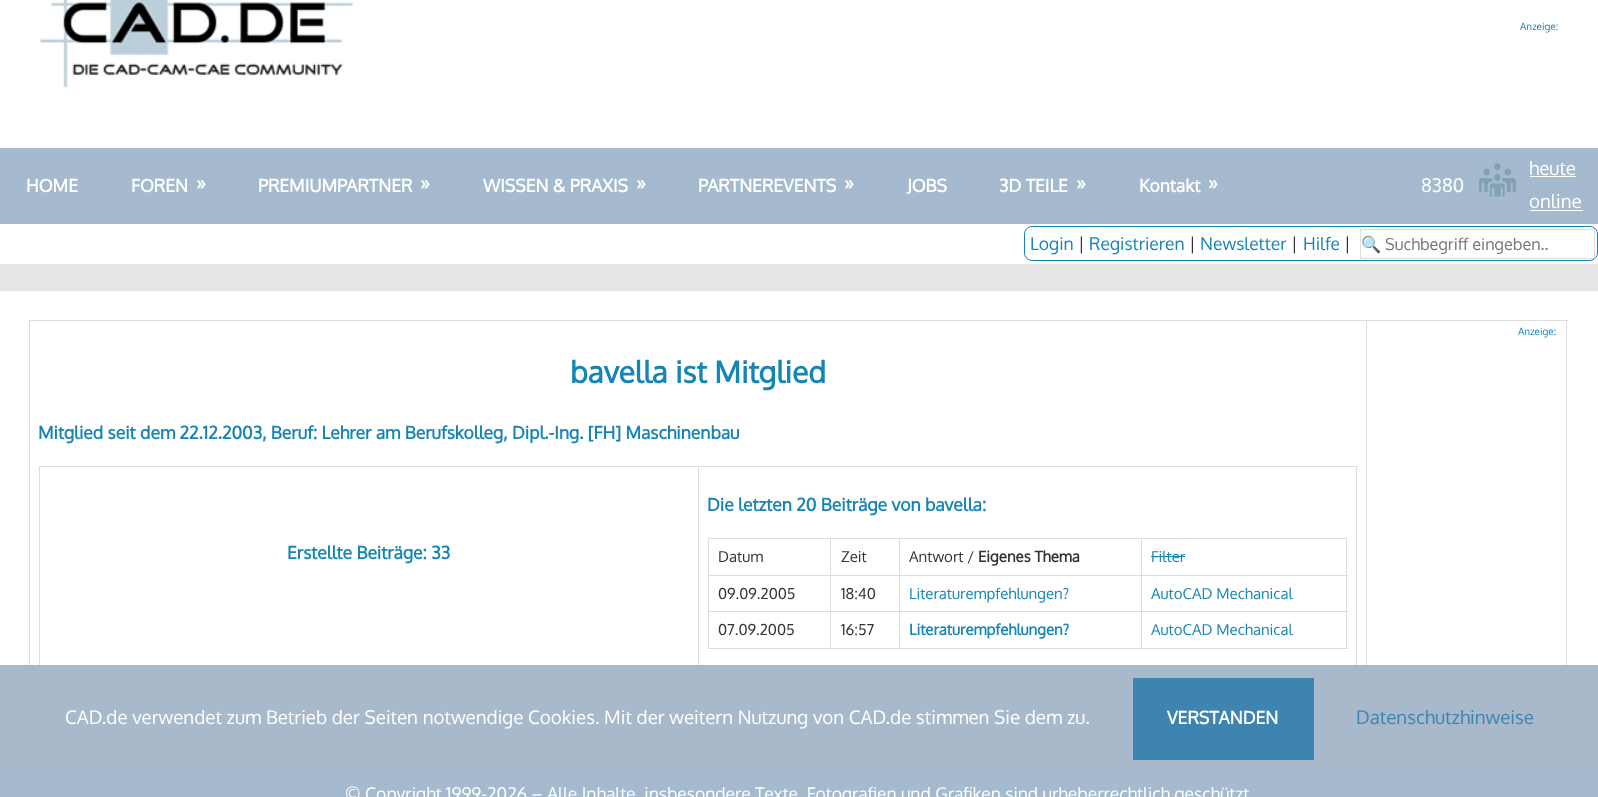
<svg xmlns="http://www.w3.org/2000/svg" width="1598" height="797">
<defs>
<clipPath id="clip1"><rect x="1361" y="234" width="233" height="20"/></clipPath>
</defs>
<rect width="100%" height="100%" fill="#e5e5e5"/>
<rect width="1598" height="148" fill="#fff"/>
<image x="40" y="0" width="313" height="88" href="media/1.png"/>
<text x="1520" y="30" style="font-family:Oxygen;font-size:10px;fill:#1585b5">Anzeige:</text>
<rect y="148" width="1598" height="76" fill="#a5bace"/>
<text x="26" y="192" style="font-family:Oxygen;font-size:17.5px;font-weight:bold;fill:#fff">HOME</text>
<text x="131" y="192" style="font-family:Oxygen;font-size:17.5px;font-weight:bold;fill:#fff">FOREN</text>
<text x="196" y="190" style="font-family:Oxygen;font-size:20px;font-weight:bold;fill:#fff">»</text>
<text x="258" y="192" style="font-family:Oxygen;font-size:17.5px;font-weight:bold;fill:#fff">PREMIUMPARTNER</text>
<text x="420" y="190" style="font-family:Oxygen;font-size:20px;font-weight:bold;fill:#fff">»</text>
<text x="483" y="192" style="font-family:Oxygen;font-size:17.5px;font-weight:bold;fill:#fff">WISSEN &amp; PRAXIS</text>
<text x="636" y="190" style="font-family:Oxygen;font-size:20px;font-weight:bold;fill:#fff">»</text>
<text x="698" y="192" style="font-family:Oxygen;font-size:17.5px;font-weight:bold;fill:#fff">PARTNEREVENTS</text>
<text x="844" y="190" style="font-family:Oxygen;font-size:20px;font-weight:bold;fill:#fff">»</text>
<text x="907" y="192" style="font-family:Oxygen;font-size:17.5px;font-weight:bold;fill:#fff">JOBS</text>
<text x="999" y="192" style="font-family:Oxygen;font-size:17.5px;font-weight:bold;fill:#fff">3D TEILE</text>
<text x="1076" y="190" style="font-family:Oxygen;font-size:20px;font-weight:bold;fill:#fff">»</text>
<text x="1139" y="192" style="font-family:Oxygen;font-size:17.5px;font-weight:bold;fill:#fff">Kontakt</text>
<text x="1208" y="190" style="font-family:Oxygen;font-size:20px;font-weight:bold;fill:#fff">»</text>
<text x="1421" y="192" style="font-family:Oxygen;font-size:18.75px;fill:#fff">8380</text>
<image x="1478" y="162" width="38" height="35" href="media/2.png"/>
<text x="1529" y="175" style="font-family:Oxygen;font-size:18.75px;fill:#fff">heute</text>
<rect x="1530" y="176" width="46" height="1" fill="#fff"/>
<text x="1529" y="208" style="font-family:Oxygen;font-size:18.75px;fill:#fff">online</text>
<rect x="1530" y="210" width="53" height="1" fill="#fff"/>
<rect y="224" width="1598" height="40" fill="#fff"/>
<rect x="1024.5" y="226.5" width="573" height="34" rx="7.5" fill="none" stroke="#1585b5"/>
<text x="1030" y="250" style="font-family:Oxygen;font-size:17.5px;fill:#1585b5">Login</text>
<text x="1078" y="250" style="font-family:Oxygen;font-size:17.5px;fill:#333">|</text>
<text x="1089" y="250" style="font-family:Oxygen;font-size:17.5px;fill:#1585b5">Registrieren</text>
<text x="1189" y="250" style="font-family:Oxygen;font-size:17.5px;fill:#333">|</text>
<text x="1200" y="250" style="font-family:Oxygen;font-size:17.5px;fill:#1585b5">Newsletter</text>
<text x="1291" y="250" style="font-family:Oxygen;font-size:17.5px;fill:#333">|</text>
<text x="1303" y="250" style="font-family:Oxygen;font-size:17.5px;fill:#1585b5">Hilfe</text>
<text x="1344" y="250" style="font-family:Oxygen;font-size:17.5px;fill:#333">|</text>
<rect x="1360.5" y="229.5" width="234" height="29" fill="none" stroke="#ddd"/>
<g clip-path="url(#clip1)">
<text x="1361" y="250" style="font-family:Noto Color Emoji;font-size:16.25px;fill:#757575">🔍</text>
</g>
<text x="1385" y="250" style="font-family:Oxygen;font-size:16.25px;fill:#757575">Suchbegriff eingeben..</text>
<rect y="291" width="1598" height="374" fill="#fff"/>
<rect x="1366" y="320" width="202" height="1" fill="#ddd"/>
<rect x="1566" y="320" width="1" height="345" fill="#ddd"/>
<rect x="1366" y="320" width="1" height="345" fill="#ddd"/>
<text x="1518" y="335" style="font-family:Oxygen;font-size:10px;fill:#1585b5">Anzeige:</text>
<rect x="29" y="320" width="1339" height="1" fill="#ddd"/>
<rect x="29" y="320" width="1" height="345" fill="#ddd"/>
<text x="570" y="383" style="font-family:Oxygen;font-size:30px;font-weight:bold;fill:#1585b5">bavella ist Mitglied</text>
<text x="38" y="439" style="font-family:Oxygen;font-size:17.55px;font-weight:bold;fill:#1585b5">Mitglied seit dem 22.12.2003, Beruf: Lehrer am Berufskolleg, Dipl.-Ing. [FH] Maschinenbau</text>
<rect x="698" y="466" width="660" height="1" fill="#ddd"/>
<rect x="698" y="466" width="1" height="199" fill="#ddd"/>
<rect x="39" y="466" width="660" height="1" fill="#ddd"/>
<rect x="39" y="466" width="1" height="199" fill="#ddd"/>
<text x="287" y="559" style="font-family:Oxygen;font-size:17.55px;font-weight:bold;fill:#1585b5">Erstellte Beiträge: 33</text>
<rect x="1356" y="466" width="1" height="199" fill="#ddd"/>
<text x="707" y="511" style="font-family:Oxygen;font-size:17.55px;font-weight:bold;fill:#1585b5">Die letzten 20 Beiträge von bavella:</text>
<rect x="1141" y="538" width="207" height="1" fill="#ddd"/>
<rect x="1141" y="575" width="207" height="1" fill="#ddd"/>
<rect x="1141" y="611" width="207" height="1" fill="#ddd"/>
<rect x="1346" y="611" width="1" height="38" fill="#ddd"/>
<rect x="1141" y="648" width="207" height="1" fill="#ddd"/>
<rect x="1141" y="611" width="1" height="38" fill="#ddd"/>
<rect x="899" y="611" width="244" height="1" fill="#ddd"/>
<rect x="1141" y="575" width="1" height="38" fill="#ddd"/>
<rect x="899" y="575" width="244" height="1" fill="#ddd"/>
<rect x="1141" y="538" width="1" height="38" fill="#ddd"/>
<rect x="899" y="538" width="244" height="1" fill="#ddd"/>
<rect x="899" y="648" width="244" height="1" fill="#ddd"/>
<rect x="899" y="611" width="1" height="38" fill="#ddd"/>
<rect x="830" y="611" width="70" height="1" fill="#ddd"/>
<rect x="899" y="575" width="1" height="38" fill="#ddd"/>
<rect x="830" y="575" width="70" height="1" fill="#ddd"/>
<rect x="899" y="538" width="1" height="38" fill="#ddd"/>
<rect x="830" y="538" width="70" height="1" fill="#ddd"/>
<rect x="830" y="648" width="70" height="1" fill="#ddd"/>
<rect x="830" y="611" width="1" height="38" fill="#ddd"/>
<rect x="708" y="611" width="123" height="1" fill="#ddd"/>
<rect x="830" y="575" width="1" height="38" fill="#ddd"/>
<rect x="708" y="575" width="123" height="1" fill="#ddd"/>
<rect x="830" y="538" width="1" height="38" fill="#ddd"/>
<rect x="708" y="538" width="123" height="1" fill="#ddd"/>
<rect x="708" y="648" width="123" height="1" fill="#ddd"/>
<rect x="708" y="611" width="1" height="38" fill="#ddd"/>
<rect x="708" y="575" width="1" height="38" fill="#ddd"/>
<rect x="708" y="538" width="1" height="38" fill="#ddd"/>
<text x="718" y="562" style="font-family:Oxygen;font-size:15px;fill:#333">Datum</text>
<text x="841" y="562" style="font-family:Oxygen;font-size:15px;fill:#333">Zeit</text>
<text x="909" y="562" style="font-family:Oxygen;font-size:15px;fill:#333">Antwort /</text>
<text x="978" y="562" style="font-family:Oxygen;font-size:15px;font-weight:bold;fill:#333">Eigenes Thema</text>
<rect x="1346" y="575" width="1" height="38" fill="#ddd"/>
<rect x="1346" y="538" width="1" height="38" fill="#ddd"/>
<text x="1151" y="562" style="font-family:Oxygen;font-size:15px;fill:#1585b5">Filter</text>
<rect x="1151" y="556" width="34" height="1" fill="#1585b5"/>
<text x="718" y="599" style="font-family:Oxygen;font-size:15px;fill:#333">09.09.2005</text>
<text x="841" y="599" style="font-family:Oxygen;font-size:15px;fill:#333">18:40</text>
<text x="909" y="599" style="font-family:Oxygen;font-size:15px;fill:#1585b5">Literaturempfehlungen?</text>
<text x="1151" y="599" style="font-family:Oxygen;font-size:15px;fill:#1585b5">AutoCAD Mechanical</text>
<text x="718" y="635" style="font-family:Oxygen;font-size:15px;fill:#333">07.09.2005</text>
<text x="841" y="635" style="font-family:Oxygen;font-size:15px;fill:#333">16:57</text>
<text x="909" y="635" style="font-family:Oxygen;font-size:15px;font-weight:bold;fill:#1585b5">Literaturempfehlungen?</text>
<text x="1151" y="635" style="font-family:Oxygen;font-size:15px;fill:#1585b5">AutoCAD Mechanical</text>
<rect y="773" width="1598" height="24" fill="#a5bace"/>
<text x="345" y="800" style="font-family:Oxygen;font-size:17.5px;fill:#fff">© Copyright 1999-2026 – Alle Inhalte, insbesondere Texte, Fotografien und Grafiken sind urheberrechtlich geschützt</text>
<rect y="665" width="1598" height="108" fill="#a8b9cc"/>
<text x="65" y="724" style="font-family:Oxygen;font-size:18.75px;fill:#fff">CAD.de verwendet zum Betrieb der Seiten notwendige Cookies. Mit der weitern Nutzung von CAD.de stimmen Sie dem zu.</text>
<rect x="1133" y="678" width="181" height="82" fill="#3e84b0"/>
<text x="1167" y="724" style="font-family:Oxygen;font-size:17.5px;font-weight:bold;fill:#fff">VERSTANDEN</text>
<text x="1356" y="724" style="font-family:Oxygen;font-size:18.75px;fill:#3e84b0">Datenschutzhinweise</text>
</svg>
